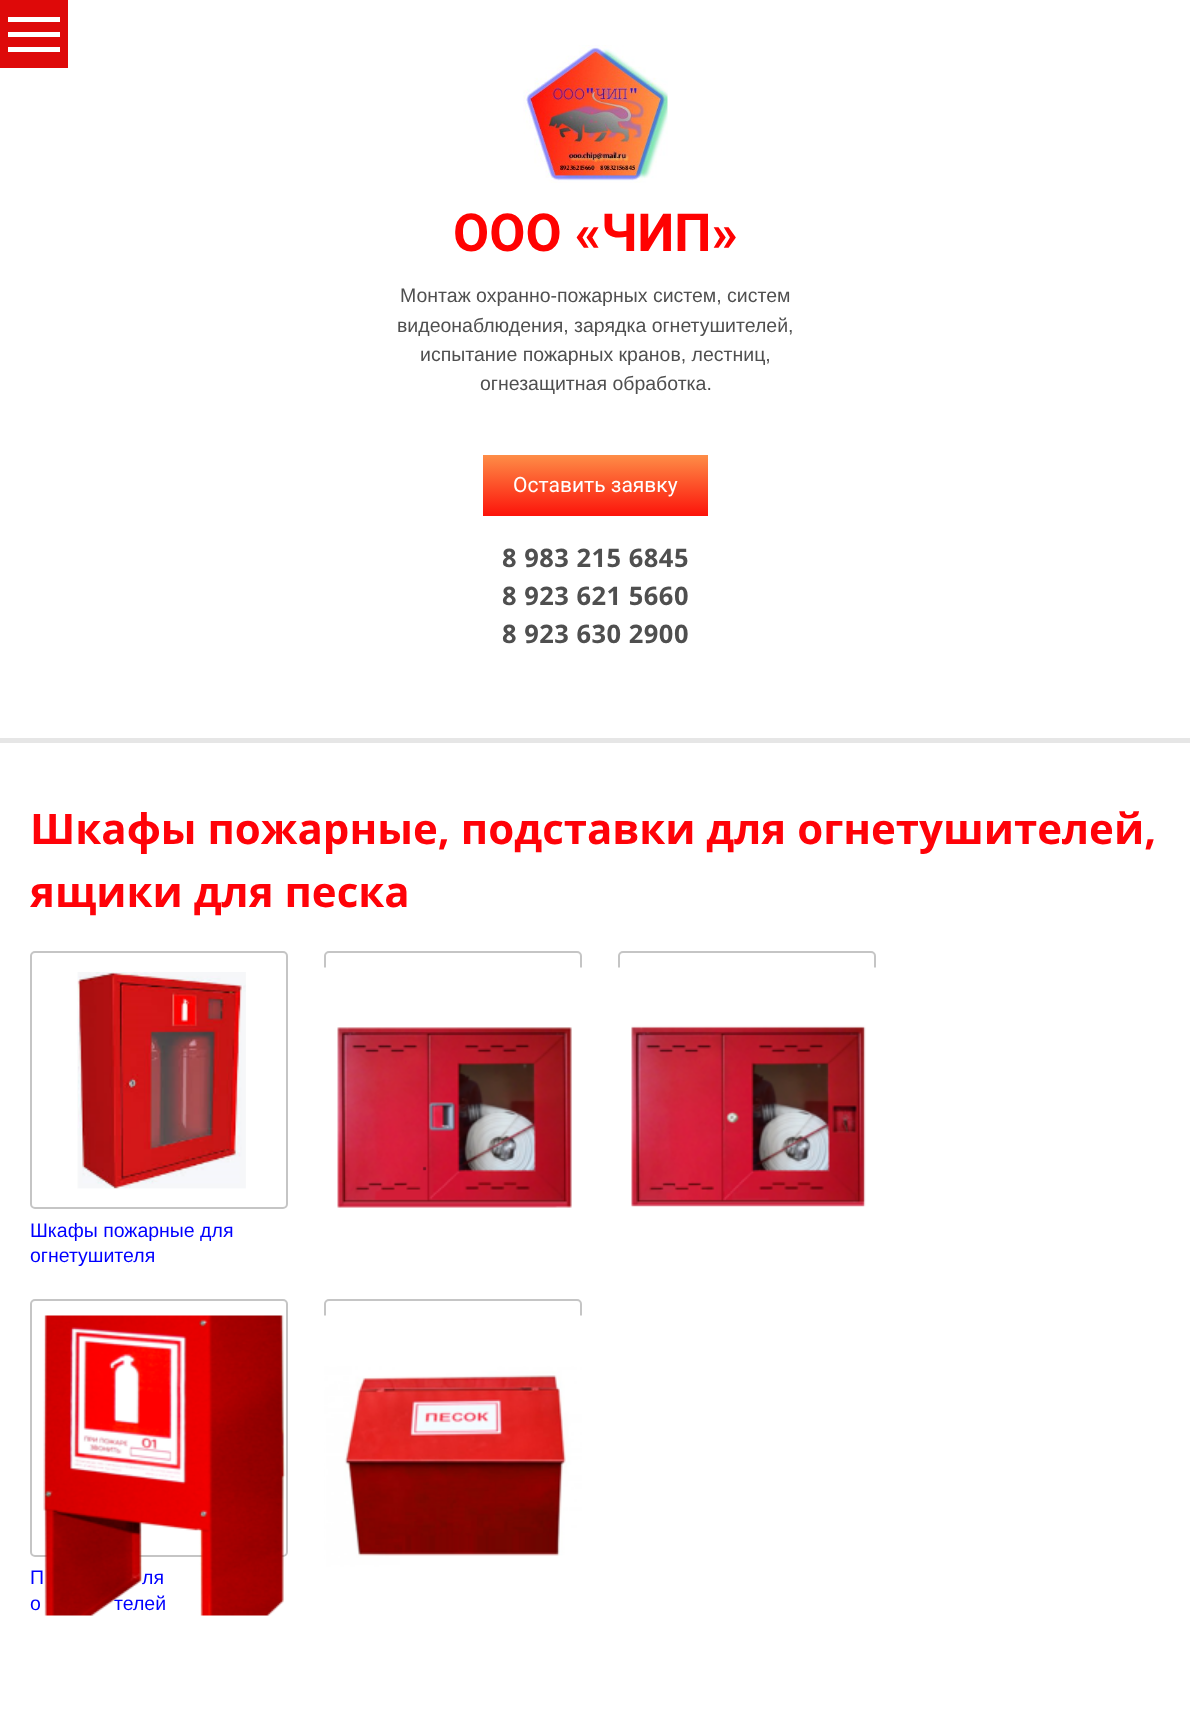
<svg xmlns="http://www.w3.org/2000/svg" width="1190" height="1728">
<defs>
<linearGradient id="g1" gradientUnits="userSpaceOnUse" x1="596" y1="516" x2="596" y2="455"><stop offset="0" stop-color="#fc130a"/><stop offset="1" stop-color="#fe8d47"/></linearGradient>
</defs>
<rect width="100%" height="100%" fill="#fff"/>
<rect width="68" height="68" fill="#de0909"/>
<rect x="8" y="17" width="52" height="5" fill="#fff"/>
<rect x="8" y="32" width="52" height="5" fill="#fff"/>
<rect x="8" y="47" width="52" height="5" fill="#fff"/>
<rect y="738" width="1190" height="5" fill="#e6e6e6"/>
<image x="523" y="45" width="145" height="138" href="media/1.png"/>
<text x="453" y="251" style="font-family:Roboto;font-size:52.5px;font-weight:bold;fill:#ff0201">ООО «ЧИП»</text>
<text x="400" y="302" style="font-family:Liberation Sans;font-size:19.5px;fill:#4f4f4f">Монтаж охранно-пожарных систем, систем</text>
<text x="397" y="332" style="font-family:Liberation Sans;font-size:19.5px;fill:#4f4f4f">видеонаблюдения, зарядка огнетушителей,</text>
<text x="420" y="361" style="font-family:Liberation Sans;font-size:19.5px;fill:#4f4f4f">испытание пожарных кранов, лестниц,</text>
<text x="480" y="390" style="font-family:Liberation Sans;font-size:19.5px;fill:#4f4f4f">огнезащитная обработка.</text>
<rect x="483" y="455" width="225" height="61" fill="url(#g1)"/>
<text x="513" y="492" style="font-family:Roboto;font-size:21px;fill:#fff">Оставить заявку</text>
<text x="502" y="567" style="font-family:Open Sans;font-size:25.5px;font-weight:bold;letter-spacing:0.5px;fill:#4f4f4f">8 983 215 6845</text>
<text x="502" y="605" style="font-family:Open Sans;font-size:25.5px;font-weight:bold;letter-spacing:0.5px;fill:#4f4f4f">8 923 621 5660</text>
<text x="502" y="643" style="font-family:Open Sans;font-size:25.5px;font-weight:bold;letter-spacing:0.5px;fill:#4f4f4f">8 923 630 2900</text>
<text x="30" y="844" style="font-family:Open Sans;font-size:42px;font-weight:bold;fill:#ff0208">Шкафы пожарные, подставки для огнетушителей,</text>
<text x="30" y="907" style="font-family:Open Sans;font-size:42px;font-weight:bold;fill:#ff0208">ящики для песка</text>
<rect x="31" y="952" width="256" height="256" rx="4" fill="none" stroke="#c5c5c5" stroke-width="2"/>
<image x="77" y="972" width="169" height="217" href="media/2.png"/>
<text x="30" y="1237" style="font-family:Liberation Sans;font-size:19.5px;fill:#00f">Шкафы пожарные для</text>
<text x="30" y="1262" style="font-family:Liberation Sans;font-size:19.5px;fill:#00f">огнетушителя</text>
<rect x="325" y="952" width="256" height="256" rx="4" fill="none" stroke="#c5c5c5" stroke-width="2"/>
<image x="324" y="967" width="258" height="300" href="media/3.png"/>
<rect x="619" y="952" width="256" height="256" rx="4" fill="none" stroke="#c5c5c5" stroke-width="2"/>
<image x="618" y="967" width="258" height="296" href="media/4.png"/>
<rect x="31" y="1300" width="256" height="256" rx="4" fill="none" stroke="#c5c5c5" stroke-width="2"/>
<text x="142" y="1584" style="font-family:Liberation Sans;font-size:19.5px;fill:#00f">ля</text>
<text x="114" y="1610" style="font-family:Liberation Sans;font-size:19.5px;fill:#00f">телей</text>
<image x="43" y="1315" width="243" height="301" href="media/5.png"/>
<text x="30" y="1584" style="font-family:Liberation Sans;font-size:19.5px;fill:#00f">П</text>
<text x="30" y="1610" style="font-family:Liberation Sans;font-size:19.5px;fill:#00f">о</text>
<rect x="325" y="1300" width="256" height="256" rx="4" fill="none" stroke="#c5c5c5" stroke-width="2"/>
<image x="324" y="1315" width="258" height="273" href="media/6.png"/>
</svg>
